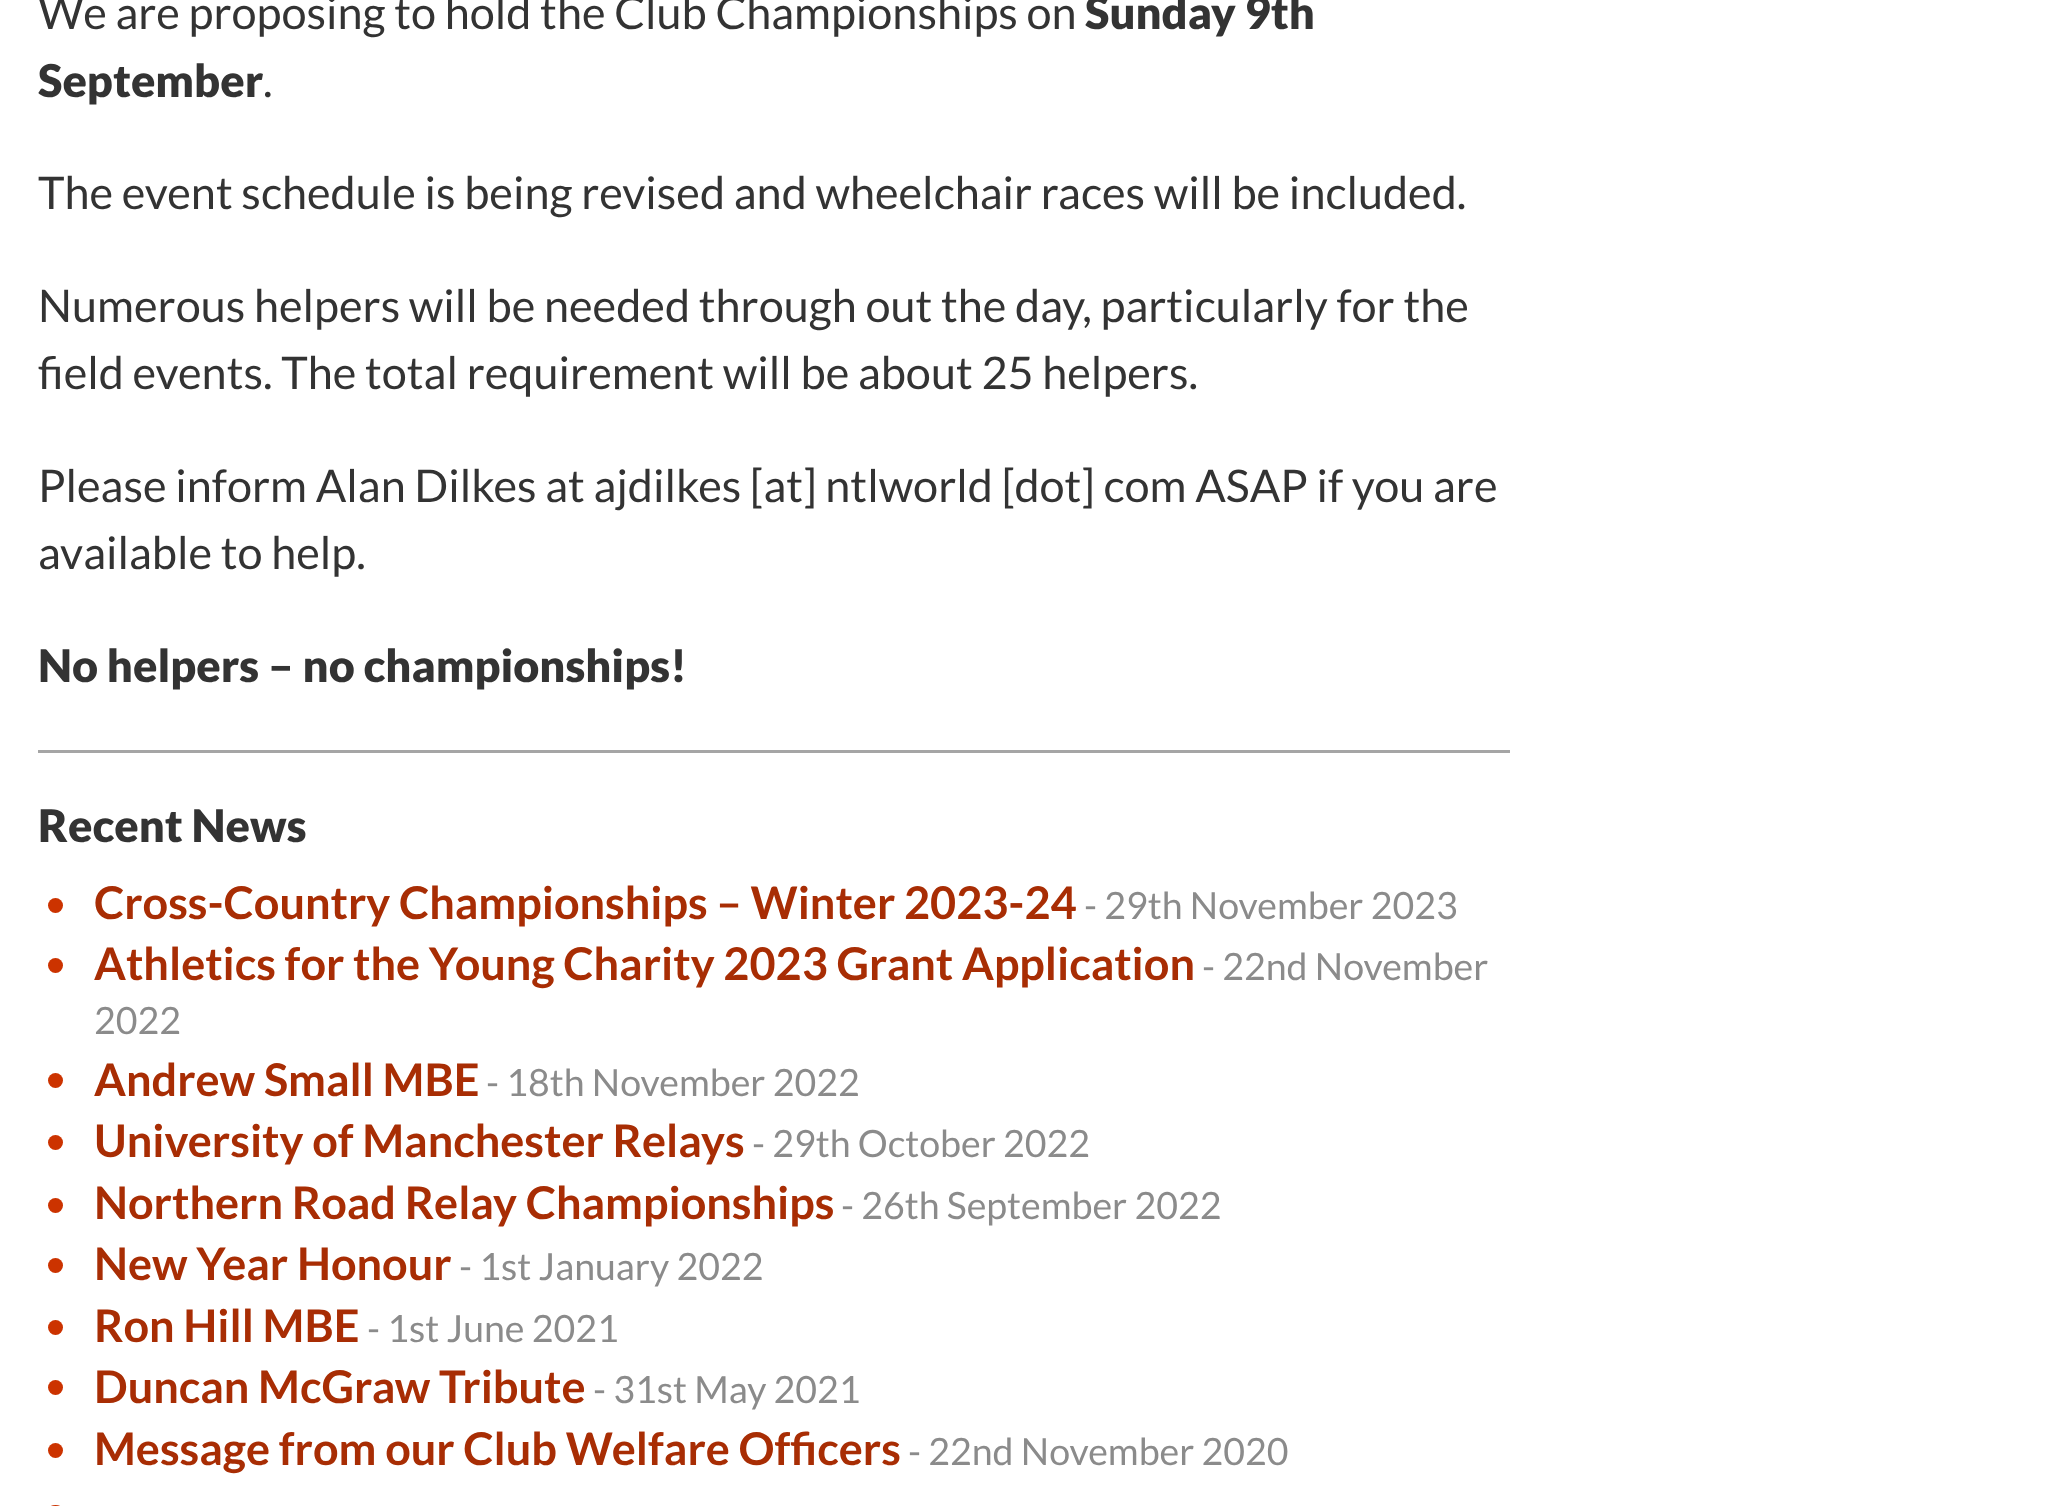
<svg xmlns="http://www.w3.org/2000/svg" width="2061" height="1506">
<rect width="100%" height="100%" fill="#fff"/>
<text x="38" y="29" style="font-family:Lato;font-size:45px;fill:#333">We are proposing to hold the Club Championships on</text>
<text x="1085" y="29" style="font-family:Lato;font-size:45px;font-weight:900;fill:#333">Sunday 9th</text>
<text x="38" y="97" style="font-family:Lato;font-size:45px;font-weight:900;fill:#333">September</text>
<text x="263" y="97" style="font-family:Lato;font-size:45px;fill:#333">.</text>
<text x="38" y="209" style="font-family:Lato;font-size:45px;fill:#333">The event schedule is being revised and wheelchair races will be included.</text>
<text x="38" y="322" style="font-family:Lato;font-size:45px;fill:#333">Numerous helpers will be needed through out the day, particularly for the</text>
<text x="38" y="389" style="font-family:Lato;font-size:45px;fill:#333">field events. The total requirement will be about 25 helpers.</text>
<text x="38" y="502" style="font-family:Lato;font-size:45px;fill:#333">Please inform Alan Dilkes at ajdilkes [at] ntlworld [dot] com ASAP if you are</text>
<text x="38" y="569" style="font-family:Lato;font-size:45px;fill:#333">available to help.</text>
<text x="38" y="682" style="font-family:Lato;font-size:45px;font-weight:900;fill:#333">No helpers – no championships!</text>
<rect x="38" y="750" width="1472" height="3" fill="#a5a5a5"/>
<text x="38" y="842" style="font-family:Lato;font-size:45px;font-weight:900;fill:#333">Recent News</text>
<circle cx="55.5" cy="905.5" r="7.5" fill="#c30"/>
<text x="94" y="919" style="font-family:Lato;font-size:45px;font-weight:bold;fill:#a82d04">Cross-Country Championships – Winter 2023-24</text>
<text x="1084" y="919" style="font-family:Lato;font-size:37.5px;fill:#8b8b8b">- 29th November 2023</text>
<circle cx="55.5" cy="965.5" r="7.5" fill="#c30"/>
<text x="94" y="980" style="font-family:Lato;font-size:45px;font-weight:bold;fill:#a82d04">Athletics for the Young Charity 2023 Grant Application</text>
<text x="1202" y="980" style="font-family:Lato;font-size:37.5px;fill:#8b8b8b">- 22nd November</text>
<text x="94" y="1034" style="font-family:Lato;font-size:37.5px;fill:#8b8b8b">2022</text>
<circle cx="55.5" cy="1080.5" r="7.5" fill="#c30"/>
<text x="94" y="1096" style="font-family:Lato;font-size:45px;font-weight:bold;fill:#a82d04">Andrew Small MBE</text>
<text x="486" y="1096" style="font-family:Lato;font-size:37.5px;fill:#8b8b8b">- 18th November 2022</text>
<circle cx="55.5" cy="1142.5" r="7.5" fill="#c30"/>
<text x="94" y="1157" style="font-family:Lato;font-size:45px;font-weight:bold;fill:#a82d04">University of Manchester Relays</text>
<text x="752" y="1157" style="font-family:Lato;font-size:37.5px;fill:#8b8b8b">- 29th October 2022</text>
<circle cx="55.5" cy="1205.5" r="7.5" fill="#c30"/>
<text x="94" y="1219" style="font-family:Lato;font-size:45px;font-weight:bold;fill:#a82d04">Northern Road Relay Championships</text>
<text x="841" y="1219" style="font-family:Lato;font-size:37.5px;fill:#8b8b8b">- 26th September 2022</text>
<circle cx="55.5" cy="1265.5" r="7.5" fill="#c30"/>
<text x="94" y="1280" style="font-family:Lato;font-size:45px;font-weight:bold;fill:#a82d04">New Year Honour</text>
<text x="459" y="1280" style="font-family:Lato;font-size:37.5px;fill:#8b8b8b">- 1st January 2022</text>
<circle cx="55.5" cy="1327.5" r="7.5" fill="#c30"/>
<text x="94" y="1342" style="font-family:Lato;font-size:45px;font-weight:bold;fill:#a82d04">Ron Hill MBE</text>
<text x="367" y="1342" style="font-family:Lato;font-size:37.5px;fill:#8b8b8b">- 1st June 2021</text>
<circle cx="55.5" cy="1387.5" r="7.5" fill="#c30"/>
<text x="94" y="1403" style="font-family:Lato;font-size:45px;font-weight:bold;fill:#a82d04">Duncan McGraw Tribute</text>
<text x="593" y="1403" style="font-family:Lato;font-size:37.5px;fill:#8b8b8b">- 31st May 2021</text>
<circle cx="55.5" cy="1450.5" r="7.5" fill="#c30"/>
<text x="94" y="1465" style="font-family:Lato;font-size:45px;font-weight:bold;fill:#a82d04">Message from our Club Welfare Officers</text>
<text x="908" y="1465" style="font-family:Lato;font-size:37.5px;fill:#8b8b8b">- 22nd November 2020</text>
<rect x="48" y="1505" width="15" height="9" rx="7.5" fill="#c30"/>
</svg>
